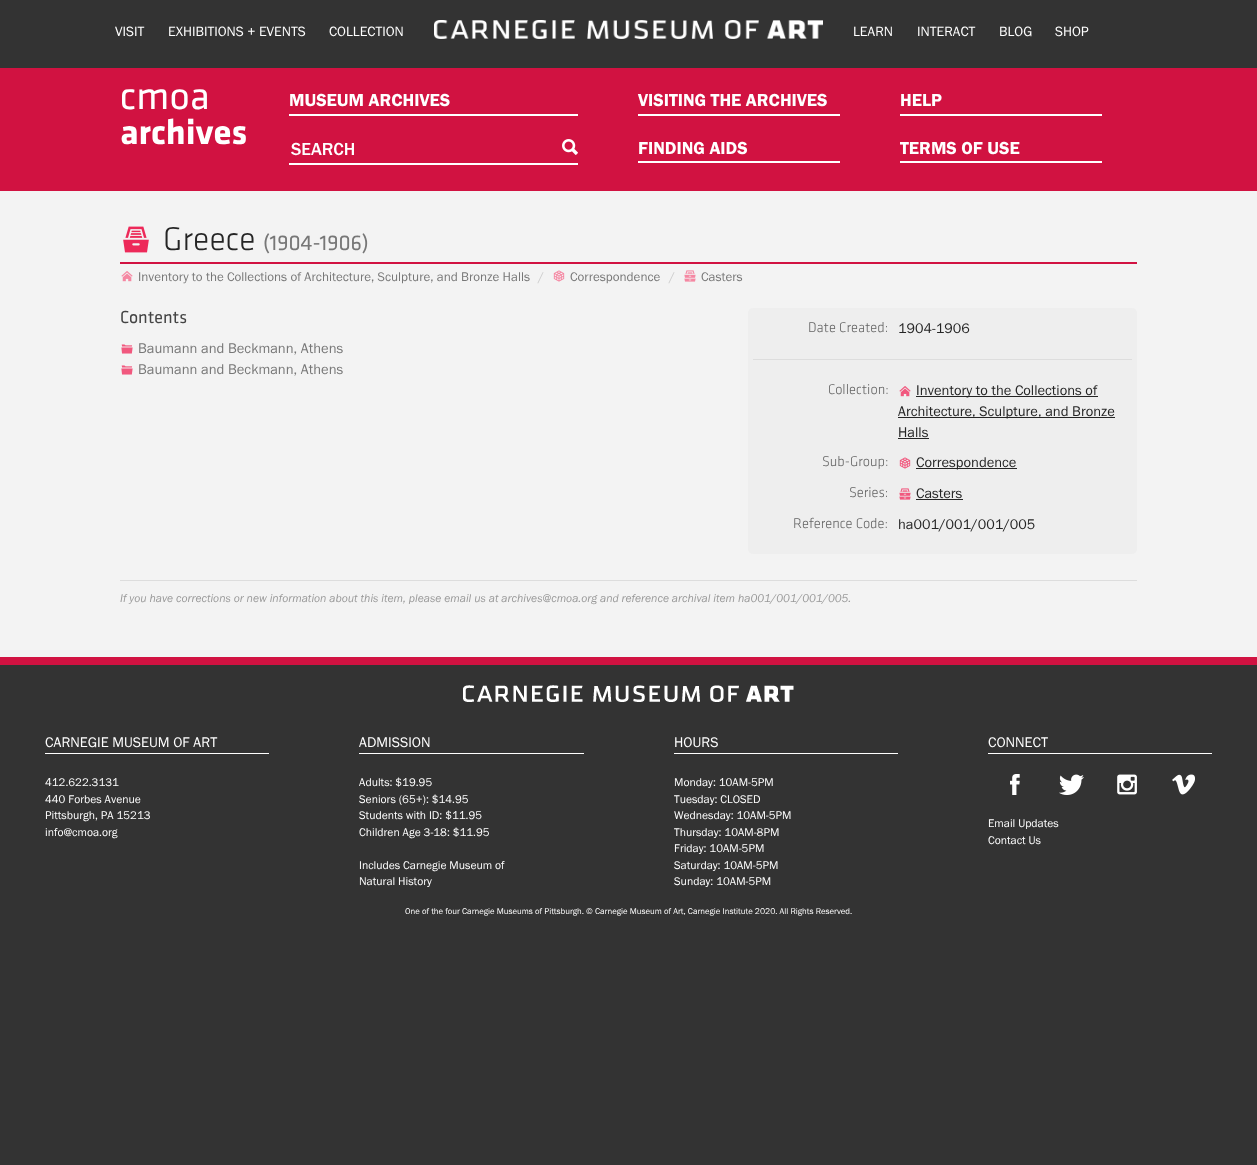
<svg xmlns="http://www.w3.org/2000/svg" width="1257" height="1165">
<rect width="100%" height="100%" fill="#333"/>
<rect y="191" width="1257" height="466" fill="#f3f3f3"/>
<text x="115" y="36" style="font-family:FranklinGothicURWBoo;font-size:14px;fill:#fff">VISIT</text>
<text x="168" y="36" style="font-family:FranklinGothicURWBoo;font-size:14px;fill:#fff">EXHIBITIONS + EVENTS</text>
<text x="329" y="36" style="font-family:FranklinGothicURWBoo;font-size:14px;fill:#fff">COLLECTION</text>
<image x="434" y="20" width="389" height="19" href="media/1.png"/>
<text x="853" y="36" style="font-family:FranklinGothicURWBoo;font-size:14px;fill:#fff">LEARN</text>
<text x="917" y="36" style="font-family:FranklinGothicURWBoo;font-size:14px;fill:#fff">INTERACT</text>
<text x="999" y="36" style="font-family:FranklinGothicURWBoo;font-size:14px;fill:#fff">BLOG</text>
<text x="1055" y="36" style="font-family:FranklinGothicURWBoo;font-size:14px;fill:#fff">SHOP</text>
<rect y="68" width="1257" height="123" fill="#d11241"/>
<text x="120" y="109" style="font-family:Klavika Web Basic;font-size:40px;fill:#fff">cmoa</text>
<text x="120" y="144" style="font-family:Klavika Web Basic;font-size:36px;font-weight:bold;fill:#fff">archives</text>
<rect x="289" y="114" width="289" height="2" fill="#fff"/>
<text x="289" y="106" style="font-family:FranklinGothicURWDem;font-size:18px;fill:#fff">MUSEUM ARCHIVES</text>
<image x="562" y="139" width="16" height="16" href="media/2.png"/>
<rect x="289" y="163" width="289" height="2" fill="#fff"/>
<text x="291" y="155" style="font-family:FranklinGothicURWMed;font-size:18px;fill:#fff">SEARCH</text>
<rect x="638" y="114" width="202" height="2" fill="#fff"/>
<text x="638" y="106" style="font-family:FranklinGothicURWDem;font-size:18px;fill:#fff">VISITING THE ARCHIVES</text>
<rect x="638" y="161" width="202" height="2" fill="#fff"/>
<text x="638" y="154" style="font-family:FranklinGothicURWDem;font-size:18px;fill:#fff">FINDING AIDS</text>
<rect x="900" y="114" width="202" height="2" fill="#fff"/>
<text x="900" y="106" style="font-family:FranklinGothicURWDem;font-size:18px;fill:#fff">HELP</text>
<rect x="900" y="161" width="202" height="2" fill="#fff"/>
<text x="900" y="154" style="font-family:FranklinGothicURWDem;font-size:18px;fill:#fff">TERMS OF USE</text>
<rect x="120" y="262" width="1017" height="2" fill="#d11241"/>
<image x="123" y="226" width="26" height="27" href="media/3.png"/>
<text x="163" y="250" style="font-family:Klavika Web Basic;font-size:34px;font-weight:300;fill:#252525">Greece</text>
<text x="263" y="250" style="font-family:Klavika Web Basic;font-size:22px;fill:#777">(1904-1906)</text>
<image x="121" y="271" width="12" height="11" href="media/4.png"/>
<text x="138" y="281" style="font-family:FranklinGothicURWBoo;font-size:13.05px;fill:#777">Inventory to the Collections of Architecture, Sculpture, and Bronze Halls</text>
<text x="538" y="281" style="font-family:FranklinGothicURWBoo;font-size:13.05px;fill:#ccc">/</text>
<image x="553" y="270" width="12" height="12" href="media/5.png"/>
<text x="570" y="281" style="font-family:FranklinGothicURWBoo;font-size:13.05px;fill:#777">Correspondence</text>
<text x="669" y="281" style="font-family:FranklinGothicURWBoo;font-size:13.05px;fill:#ccc">/</text>
<image x="684" y="270" width="12" height="12" href="media/6.png"/>
<text x="701" y="281" style="font-family:FranklinGothicURWBoo;font-size:13.05px;fill:#777">Casters</text>
<text x="120" y="323" style="font-family:Klavika Web Basic;font-size:18px;fill:#444">Contents</text>
<image x="121" y="344" width="12" height="10" href="media/7.png"/>
<text x="138" y="353" style="font-family:FranklinGothicURWBoo;font-size:14.5px;fill:#777">Baumann and Beckmann, Athens</text>
<image x="121" y="365" width="12" height="10" href="media/7.png"/>
<text x="138" y="374" style="font-family:FranklinGothicURWBoo;font-size:14.5px;fill:#777">Baumann and Beckmann, Athens</text>
<rect x="748" y="308" width="389" height="246" rx="5" fill="#eee"/>
<rect x="753" y="359" width="379" height="1" fill="#ddd"/>
<text x="808" y="332" style="font-family:Klavika Web Basic;font-size:14.5px;font-weight:300;fill:#666">Date Created:</text>
<text x="898" y="333" style="font-family:FranklinGothicURWBoo;font-size:14.5px;fill:#252525">1904-1906</text>
<text x="828" y="394" style="font-family:Klavika Web Basic;font-size:14.5px;font-weight:300;fill:#666">Collection:</text>
<image x="899" y="386" width="12" height="11" href="media/8.png"/>
<rect x="916" y="396" width="182" height="1" fill="#252525"/>
<text x="916" y="395" style="font-family:FranklinGothicURWBoo;font-size:14.5px;fill:#252525">Inventory to the Collections of</text>
<rect x="898" y="417" width="217" height="1" fill="#252525"/>
<text x="898" y="416" style="font-family:FranklinGothicURWBoo;font-size:14.5px;fill:#252525">Architecture, Sculpture, and Bronze</text>
<text x="898" y="437" style="font-family:FranklinGothicURWBoo;font-size:14.5px;fill:#252525">Halls</text>
<rect x="898" y="438" width="31" height="1" fill="#252525"/>
<text x="822" y="466" style="font-family:Klavika Web Basic;font-size:14.5px;font-weight:300;fill:#666">Sub-Group:</text>
<image x="899" y="457" width="12" height="12" href="media/9.png"/>
<rect x="916" y="468" width="101" height="1" fill="#252525"/>
<text x="916" y="467" style="font-family:FranklinGothicURWBoo;font-size:14.5px;fill:#252525">Correspondence</text>
<text x="849" y="497" style="font-family:Klavika Web Basic;font-size:14.5px;font-weight:300;fill:#666">Series:</text>
<image x="899" y="488" width="12" height="12" href="media/10.png"/>
<text x="916" y="498" style="font-family:FranklinGothicURWBoo;font-size:14.5px;fill:#252525">Casters</text>
<rect x="916" y="499" width="47" height="1" fill="#252525"/>
<text x="793" y="528" style="font-family:Klavika Web Basic;font-size:14.5px;font-weight:300;fill:#666">Reference Code:</text>
<text x="898" y="529" style="font-family:FranklinGothicURWBoo;font-size:14.5px;fill:#252525">ha001/001/001/005</text>
<rect x="120" y="580" width="1017" height="1" fill="#ddd"/>
<text x="120" y="602" style="font-family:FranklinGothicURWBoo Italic;font-size:11.6px;font-style:italic;fill:#999">If you have corrections or new information about this item, please email us at archives@cmoa.org and reference archival item ha001/001/001/005.</text>
<rect y="657" width="1257" height="8" fill="#d11241"/>
<image x="463" y="685" width="331" height="17" href="media/11.png"/>
<rect x="45" y="753" width="224" height="1" fill="#fff"/>
<text x="45" y="747" style="font-family:FranklinGothicURWBoo;font-size:14.5px;fill:#fff">CARNEGIE MUSEUM OF ART</text>
<text x="45" y="786" style="font-family:FranklinGothicURWBoo;font-size:11.6px;fill:#fff">412.622.3131</text>
<text x="45" y="803" style="font-family:FranklinGothicURWBoo;font-size:11.6px;fill:#fff">440 Forbes Avenue</text>
<text x="45" y="819" style="font-family:FranklinGothicURWBoo;font-size:11.6px;fill:#fff">Pittsburgh, PA 15213</text>
<text x="45" y="836" style="font-family:FranklinGothicURWBoo;font-size:11.6px;fill:#fff">info@cmoa.org</text>
<rect x="359" y="753" width="225" height="1" fill="#fff"/>
<text x="359" y="747" style="font-family:FranklinGothicURWBoo;font-size:14.5px;fill:#fff">ADMISSION</text>
<text x="359" y="786" style="font-family:FranklinGothicURWBoo;font-size:11.6px;fill:#fff">Adults: $19.95</text>
<text x="359" y="803" style="font-family:FranklinGothicURWBoo;font-size:11.6px;fill:#fff">Seniors (65+): $14.95</text>
<text x="359" y="819" style="font-family:FranklinGothicURWBoo;font-size:11.6px;fill:#fff">Students with ID: $11.95</text>
<text x="359" y="836" style="font-family:FranklinGothicURWBoo;font-size:11.6px;fill:#fff">Children Age 3-18: $11.95</text>
<text x="359" y="869" style="font-family:FranklinGothicURWBoo;font-size:11.6px;fill:#fff">Includes Carnegie Museum of</text>
<text x="359" y="885" style="font-family:FranklinGothicURWBoo;font-size:11.6px;fill:#fff">Natural History</text>
<rect x="674" y="753" width="224" height="1" fill="#fff"/>
<text x="674" y="747" style="font-family:FranklinGothicURWBoo;font-size:14.5px;fill:#fff">HOURS</text>
<text x="674" y="786" style="font-family:FranklinGothicURWBoo;font-size:11.6px;fill:#fff">Monday: 10AM-5PM</text>
<text x="674" y="803" style="font-family:FranklinGothicURWBoo;font-size:11.6px;fill:#fff">Tuesday: CLOSED</text>
<text x="674" y="819" style="font-family:FranklinGothicURWBoo;font-size:11.6px;fill:#fff">Wednesday: 10AM-5PM</text>
<text x="674" y="836" style="font-family:FranklinGothicURWBoo;font-size:11.6px;fill:#fff">Thursday: 10AM-8PM</text>
<text x="674" y="852" style="font-family:FranklinGothicURWBoo;font-size:11.6px;fill:#fff">Friday: 10AM-5PM</text>
<text x="674" y="869" style="font-family:FranklinGothicURWBoo;font-size:11.6px;fill:#fff">Saturday: 10AM-5PM</text>
<text x="674" y="885" style="font-family:FranklinGothicURWBoo;font-size:11.6px;fill:#fff">Sunday: 10AM-5PM</text>
<rect x="988" y="753" width="224" height="1" fill="#fff"/>
<text x="988" y="747" style="font-family:FranklinGothicURWBoo;font-size:14.5px;fill:#fff">CONNECT</text>
<image x="1010" y="774" width="10" height="21" href="media/12.png"/>
<image x="1059" y="774" width="25" height="21" href="media/13.png"/>
<image x="1117" y="774" width="20" height="21" href="media/14.png"/>
<image x="1172" y="774" width="23" height="21" href="media/15.png"/>
<text x="988" y="827" style="font-family:FranklinGothicURWBoo;font-size:11.6px;fill:#fff">Email Updates</text>
<text x="988" y="844" style="font-family:FranklinGothicURWBoo;font-size:11.6px;fill:#fff">Contact Us</text>
<text x="405" y="914" style="font-family:FranklinGothicURWBoo;font-size:8.7px;fill:#fff">One of the four Carnegie Museums of Pittsburgh. © Carnegie Museum of Art, Carnegie Institute 2020. All Rights Reserved.</text>
</svg>
